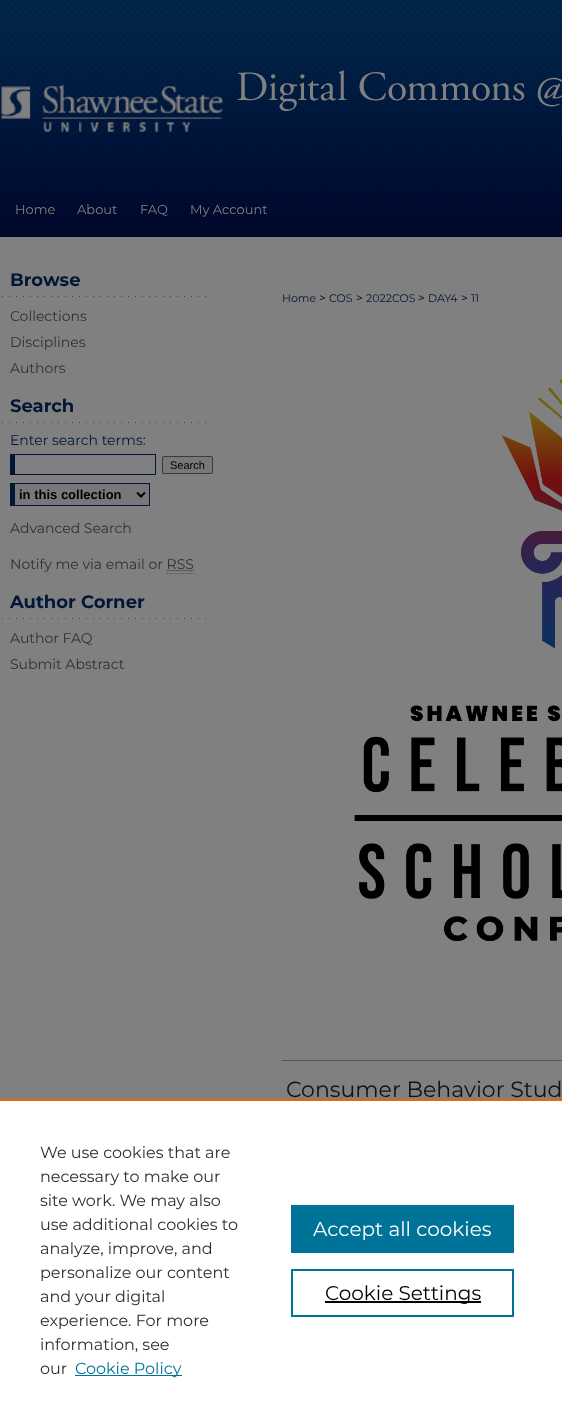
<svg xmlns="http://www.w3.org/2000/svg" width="562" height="1421">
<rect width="100%" height="100%" fill="#808080"/>
<image x="0" y="0" width="562" height="237" href="media/1.png"/>
<image x="1" y="85" width="223" height="47" href="media/2.png"/>
<image x="237" y="70" width="325" height="41" href="media/3.png"/>
<text x="15" y="214" style="font-family:Montserrat;font-size:13px;fill:#808080">Home</text>
<text x="77" y="214" style="font-family:Montserrat;font-size:13px;fill:#808080">About</text>
<text x="140" y="214" style="font-family:Montserrat;font-size:13px;fill:#808080">FAQ</text>
<text x="190" y="214" style="font-family:Montserrat;font-size:13px;fill:#808080">My Account</text>
<image x="2" y="296" width="204" height="1" href="media/4.png"/>
<text x="10" y="286" style="font-family:Montserrat;font-size:18px;font-weight:bold;fill:#021736">Browse</text>
<text x="10" y="321" style="font-family:Montserrat;font-size:14px;fill:#303030">Collections</text>
<text x="10" y="347" style="font-family:Montserrat;font-size:14px;fill:#303030">Disciplines</text>
<text x="10" y="373" style="font-family:Montserrat;font-size:14px;fill:#303030">Authors</text>
<image x="2" y="422" width="204" height="1" href="media/4.png"/>
<text x="10" y="412" style="font-family:Montserrat;font-size:18px;font-weight:bold;fill:#021736">Search</text>
<text x="10" y="445" style="font-family:Montserrat;font-size:14px;fill:#021736">Enter search terms:</text>
<rect x="10" y="454" width="146" height="1" fill="#021736"/>
<rect x="155" y="454" width="1" height="21" fill="#021736"/>
<rect x="10" y="474" width="146" height="1" fill="#021736"/>
<rect x="10" y="454" width="5" height="21" fill="#021736"/>
<rect x="162.5" y="456.5" width="50" height="17" rx="1.5" fill="#787878" stroke="#3b3b3b"/>
<text x="170" y="469" style="font-family:Liberation Sans;font-size:11px;fill:#000">Search</text>
<rect x="15" y="484" width="134" height="21" fill="#787878"/>
<rect x="10" y="483" width="140" height="1" fill="#021736"/>
<rect x="149" y="483" width="1" height="23" fill="#021736"/>
<rect x="10" y="505" width="140" height="1" fill="#021736"/>
<rect x="10" y="483" width="5" height="23" fill="#021736"/>
<path d="M137 492.5l4 4l4-4" fill="none" stroke="#000" stroke-width="2"/>
<text x="19" y="499" style="font-family:Liberation Sans;font-size:13px;font-weight:bold;fill:#000">in this collection</text>
<text x="10" y="533" style="font-family:Montserrat;font-size:14px;fill:#303030">Advanced Search</text>
<text x="10" y="569" style="font-family:Montserrat;font-size:14px;fill:#303030">Notify me via email or RSS</text>
<path d="M166.5 570.5h27.5" fill="none" stroke="#303030" stroke-dasharray="1 1"/>
<path d="M167 573.5h27" fill="none" stroke="#4d4d4d" stroke-dasharray="1 1"/>
<image x="2" y="618" width="204" height="1" href="media/4.png"/>
<text x="10" y="608" style="font-family:Montserrat;font-size:18px;font-weight:bold;fill:#021736">Author Corner</text>
<text x="10" y="643" style="font-family:Montserrat;font-size:14px;fill:#303030">Author FAQ</text>
<text x="10" y="669" style="font-family:Montserrat;font-size:14px;fill:#303030">Submit Abstract</text>
<text x="282" y="302" style="font-family:Montserrat;font-size:11px;fill:#021736">Home</text>
<text x="319" y="302" style="font-family:Montserrat;font-size:12px;fill:#000">&gt;</text>
<text x="329" y="302" style="font-family:Montserrat;font-size:11px;fill:#021736">COS</text>
<text x="356" y="302" style="font-family:Montserrat;font-size:12px;fill:#000">&gt;</text>
<text x="366" y="302" style="font-family:Montserrat;font-size:11px;fill:#021736">2022COS</text>
<text x="418" y="302" style="font-family:Montserrat;font-size:12px;fill:#000">&gt;</text>
<text x="428" y="302" style="font-family:Montserrat;font-size:11px;fill:#021736">DAY4</text>
<text x="461" y="302" style="font-family:Montserrat;font-size:12px;fill:#000">&gt;</text>
<text x="471" y="302" style="font-family:Montserrat;font-size:11px;fill:#021736">11</text>
<image x="354" y="379" width="208" height="562" href="media/5.png"/>
<rect x="282" y="1060" width="280" height="1" fill="#555"/>
<text x="286" y="1097" style="font-family:Montserrat;font-size:22px;fill:#111">Consumer Behavior Stud</text>
<rect y="1101" width="562" height="320" fill="#fff"/>
<rect y="1099" width="562" height="2" fill="#eb6500"/>
<text x="40" y="1158" style="font-family:Montserrat;font-size:16px;fill:#303030">We use cookies that are</text>
<text x="40" y="1182" style="font-family:Montserrat;font-size:16px;fill:#303030">necessary to make our</text>
<text x="40" y="1206" style="font-family:Montserrat;font-size:16px;fill:#303030">site work. We may also</text>
<text x="40" y="1230" style="font-family:Montserrat;font-size:16px;fill:#303030">use additional cookies to</text>
<text x="40" y="1254" style="font-family:Montserrat;font-size:16px;fill:#303030">analyze, improve, and</text>
<text x="40" y="1278" style="font-family:Montserrat;font-size:16px;fill:#303030">personalize our content</text>
<text x="40" y="1302" style="font-family:Montserrat;font-size:16px;fill:#303030">and your digital</text>
<text x="40" y="1326" style="font-family:Montserrat;font-size:16px;fill:#303030">experience. For more</text>
<text x="40" y="1350" style="font-family:Montserrat;font-size:16px;fill:#303030">information, see</text>
<text x="40" y="1374" style="font-family:Montserrat;font-size:16px;fill:#303030">our</text>
<rect x="75" y="1375" width="107" height="1" fill="#007398"/>
<text x="75" y="1374" style="font-family:Montserrat;font-size:16px;fill:#007398">Cookie Policy</text>
<rect x="291" y="1205" width="223" height="48" fill="#007398"/>
<text x="313" y="1236" style="font-family:Montserrat;font-size:20px;fill:#fff">Accept all cookies</text>
<rect x="292" y="1270" width="221" height="46" fill="none" stroke="#007398" stroke-width="2"/>
<rect x="325" y="1301" width="156" height="2" fill="#000"/>
<text x="325" y="1300" style="font-family:Montserrat;font-size:20px;fill:#000">Cookie Settings</text>
</svg>
